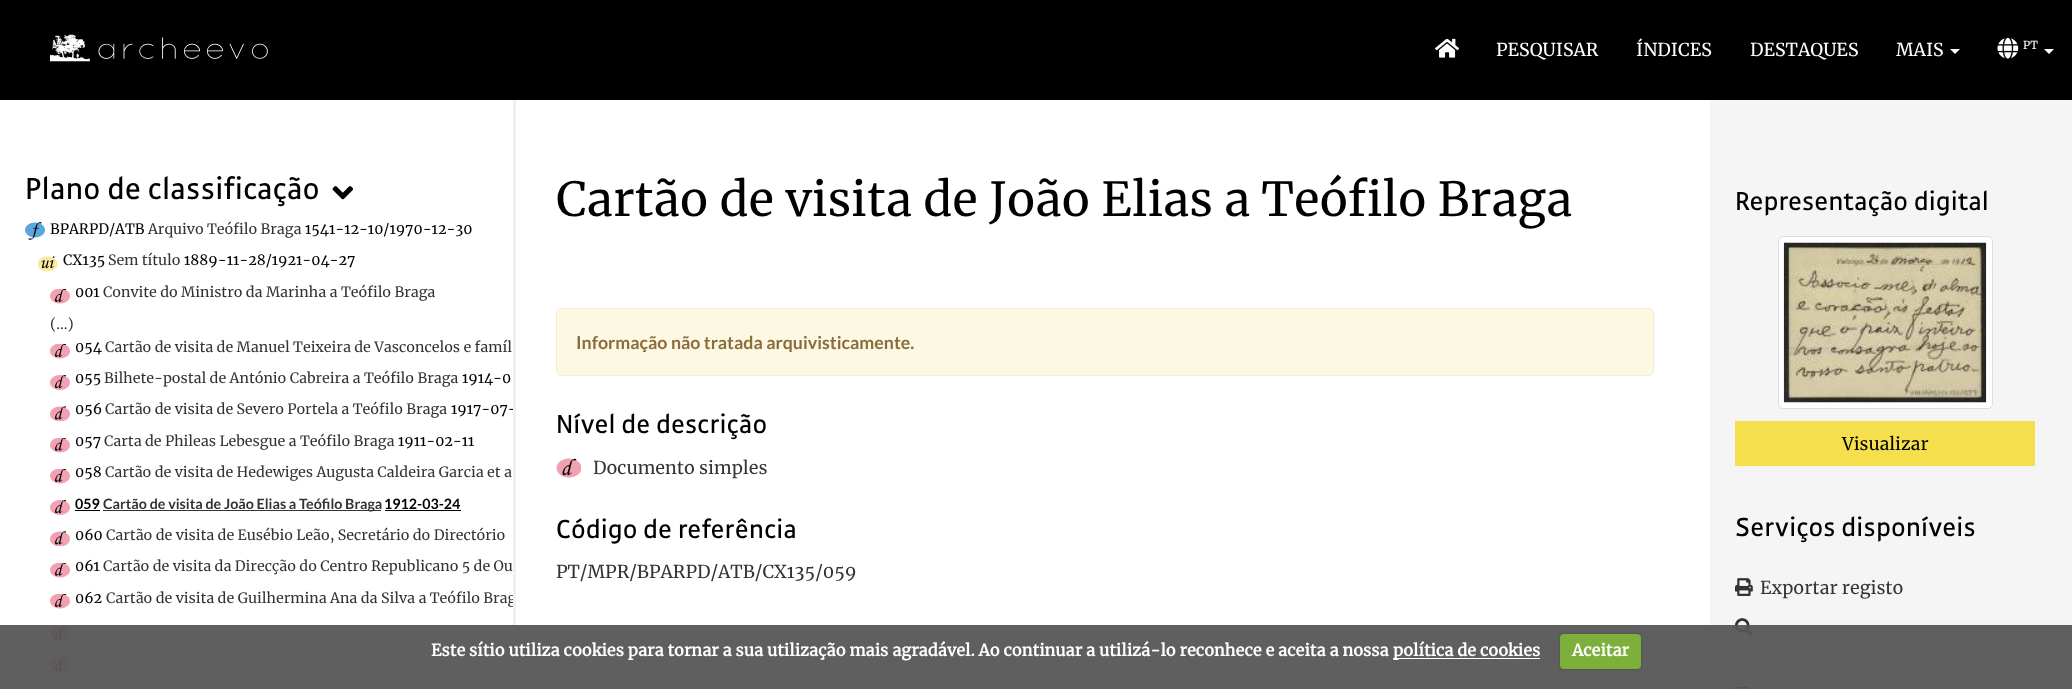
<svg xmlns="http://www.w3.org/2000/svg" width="2072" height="689">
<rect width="100%" height="100%" fill="#fff"/>
<rect width="2072" height="100" fill="#000"/>
<image x="50" y="34" width="218" height="28" href="media/1.png"/>
<image x="1435" y="38" width="24" height="20" href="media/2.png"/>
<text x="1496" y="56" style="font-family:Merriweather;font-size:17.8px;fill:#fff">PESQUISAR</text>
<text x="1636" y="56" style="font-family:Merriweather;font-size:17.8px;fill:#fff">ÍNDICES</text>
<text x="1750" y="56" style="font-family:Merriweather;font-size:17.8px;fill:#fff">DESTAQUES</text>
<text x="1896" y="56" style="font-family:Merriweather;font-size:17.8px;fill:#fff">MAIS</text>
<path d="M1950 49h10l-5 5z" fill="#fff"/>
<image x="1997" y="37" width="22" height="22" href="media/3.png"/>
<text x="2023" y="49" style="font-family:Merriweather;font-size:11px;fill:#fff">PT</text>
<path d="M2044 49h10l-5 5z" fill="#fff"/>
<rect x="1710" y="100" width="362" height="589" fill="#f5f5f5"/>
<text x="451" y="414" style="font-family:Merriweather;font-size:14.25px;fill:#000">1917-07-</text>
<text x="106" y="603" style="font-family:Merriweather;font-size:14.25px;fill:#333">Cartão de visita de Guilhermina Ana da Silva a Teófilo Brag</text>
<rect x="513" y="100" width="3" height="589" fill="#f0f0f0"/>
<text x="25" y="199" style="font-family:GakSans;font-size:32.75px;fill:#000">Plano de classificação</text>
<image x="332" y="186" width="21" height="14" href="media/4.png"/>
<image x="25" y="222" width="20" height="18" href="media/5.png"/>
<text x="50" y="234" style="font-family:Merriweather;font-size:14.25px;fill:#000">BPARPD/ATB</text>
<text x="148" y="234" style="font-family:Merriweather;font-size:14.25px;fill:#333">Arquivo Teófilo Braga</text>
<text x="305" y="234" style="font-family:Merriweather;font-size:14.25px;fill:#000">1541-12-10/1970-12-30</text>
<image x="38" y="256" width="20" height="15" href="media/6.png"/>
<text x="63" y="265" style="font-family:Merriweather;font-size:14.25px;fill:#000">CX135</text>
<text x="108" y="265" style="font-family:Merriweather;font-size:14.25px;fill:#333">Sem título</text>
<text x="184" y="265" style="font-family:Merriweather;font-size:14.25px;fill:#000">1889-11-28/1921-04-27</text>
<image x="50" y="289" width="20" height="15" href="media/7.png"/>
<text x="75" y="297" style="font-family:Merriweather;font-size:14.25px;fill:#000">001</text>
<text x="103" y="297" style="font-family:Merriweather;font-size:14.25px;fill:#333">Convite do Ministro da Marinha a Teófilo Braga</text>
<text x="50" y="329" style="font-family:Merriweather;font-size:14.25px;fill:#333">(...)</text>
<image x="50" y="344" width="20" height="15" href="media/7.png"/>
<text x="75" y="352" style="font-family:Merriweather;font-size:14.25px;fill:#000">054</text>
<text x="105" y="352" style="font-family:Merriweather;font-size:14.25px;fill:#333">Cartão de visita de Manuel Teixeira de Vasconcelos e famíl</text>
<image x="50" y="375" width="20" height="15" href="media/8.png"/>
<text x="75" y="383" style="font-family:Merriweather;font-size:14.25px;fill:#000">055</text>
<text x="104" y="383" style="font-family:Merriweather;font-size:14.25px;fill:#333">Bilhete-postal de António Cabreira a Teófilo Braga</text>
<text x="462" y="383" style="font-family:Merriweather;font-size:14.25px;fill:#000">1914-0</text>
<image x="50" y="406" width="20" height="15" href="media/9.png"/>
<text x="75" y="414" style="font-family:Merriweather;font-size:14.25px;fill:#000">056</text>
<text x="105" y="414" style="font-family:Merriweather;font-size:14.25px;fill:#333">Cartão de visita de Severo Portela a Teófilo Braga</text>
<image x="50" y="438" width="20" height="15" href="media/10.png"/>
<text x="75" y="446" style="font-family:Merriweather;font-size:14.25px;fill:#000">057</text>
<text x="104" y="446" style="font-family:Merriweather;font-size:14.25px;fill:#333">Carta de Phileas Lebesgue a Teófilo Braga</text>
<text x="398" y="446" style="font-family:Merriweather;font-size:14.25px;fill:#000">1911-02-11</text>
<image x="50" y="469" width="20" height="15" href="media/7.png"/>
<text x="75" y="477" style="font-family:Merriweather;font-size:14.25px;fill:#000">058</text>
<text x="105" y="477" style="font-family:Merriweather;font-size:14.25px;fill:#333">Cartão de visita de Hedewiges Augusta Caldeira Garcia et a</text>
<image x="50" y="500" width="20" height="15" href="media/8.png"/>
<text x="75" y="509" style="font-family:Lato;font-size:14.25px;font-weight:bold;fill:#000">059</text>
<rect x="75" y="510" width="25" height="1" fill="#000"/>
<rect x="103" y="510" width="278" height="1" fill="#333"/>
<text x="103" y="509" style="font-family:Lato;font-size:14.25px;font-weight:bold;fill:#333">Cartão de visita de João Elias a Teófilo Braga</text>
<text x="384" y="509" style="font-family:Lato;font-size:14.25px;font-weight:bold;fill:#000">1912-03-24</text>
<rect x="385" y="510" width="76" height="1" fill="#000"/>
<image x="50" y="531" width="20" height="15" href="media/9.png"/>
<text x="75" y="540" style="font-family:Merriweather;font-size:14.25px;fill:#000">060</text>
<text x="106" y="540" style="font-family:Merriweather;font-size:14.25px;fill:#333">Cartão de visita de Eusébio Leão, Secretário do Directório</text>
<image x="50" y="563" width="20" height="15" href="media/10.png"/>
<text x="75" y="571" style="font-family:Merriweather;font-size:14.25px;fill:#000">061</text>
<text x="103" y="571" style="font-family:Merriweather;font-size:14.25px;fill:#333">Cartão de visita da Direcção do Centro Republicano 5 de Ou</text>
<image x="50" y="594" width="20" height="15" href="media/7.png"/>
<text x="75" y="603" style="font-family:Merriweather;font-size:14.25px;fill:#000">062</text>
<image x="50" y="626" width="20" height="15" href="media/9.png"/>
<image x="50" y="658" width="20" height="15" href="media/10.png"/>
<text x="556" y="216" style="font-family:Merriweather;font-size:46.9px;fill:#000">Cartão de visita de João Elias a Teófilo Braga</text>
<rect x="556.5" y="308.5" width="1097" height="67" rx="4.5" fill="#fcf8e3" stroke="#faebcc"/>
<text x="576" y="349" style="font-family:Lato;font-size:17.8px;font-weight:bold;fill:#8a6d3b">Informação não tratada arquivisticamente.</text>
<text x="556" y="433" style="font-family:GakSans;font-size:28.1px;fill:#000">Nível de descrição</text>
<image x="556" y="458" width="25" height="20" href="media/11.png"/>
<text x="593" y="474" style="font-family:Merriweather;font-size:17.8px;fill:#333">Documento simples</text>
<text x="556" y="538" style="font-family:GakSans;font-size:28.1px;fill:#000">Código de referência</text>
<text x="556" y="578" style="font-family:Merriweather;font-size:17.8px;fill:#333">PT/MPR/BPARPD/ATB/CX135/059</text>
<text x="1735" y="210" style="font-family:GakSans;font-size:28.1px;fill:#000">Representação digital</text>
<rect x="1778.5" y="236.5" width="214" height="172" rx="4.5" fill="#fff" stroke="#ddd"/>
<image x="1783" y="242" width="204" height="161" href="media/12.png"/>
<rect x="1735" y="421" width="300" height="45" fill="#f5df4d"/>
<text x="1842" y="450" style="font-family:Merriweather;font-size:17.5px;fill:#000">Visualizar</text>
<text x="1735" y="536" style="font-family:GakSans;font-size:28.1px;fill:#000">Serviços disponíveis</text>
<image x="1735" y="578" width="18" height="18" href="media/13.png"/>
<text x="1760" y="594" style="font-family:Merriweather;font-size:17.8px;fill:#333">Exportar registo</text>
<image x="1735" y="618" width="18" height="18" href="media/14.png"/>
<image x="1735" y="686" width="14" height="3" href="media/15.png"/>
<rect y="625" width="2072" height="64" fill="#565656f2"/>
<text x="431" y="656" style="font-family:Merriweather;font-size:16.25px;font-weight:bold;fill:#fff">Este sítio utiliza cookies para tornar a sua utilização mais agradável. Ao continuar a utilizá-lo reconhece e aceita a nossa</text>
<rect x="1393" y="658" width="147" height="1" fill="#fff"/>
<text x="1393" y="656" style="font-family:Merriweather;font-size:16.25px;font-weight:bold;fill:#fff">política de cookies</text>
<rect x="1560" y="634" width="81" height="35" rx="4" fill="#00000040" filter="blur(1px)"/>
<rect x="1560" y="634" width="81" height="35" rx="4" fill="#7daf3b"/>
<text x="1572" y="656" style="font-family:Merriweather;font-size:16.25px;font-weight:bold;fill:#fff">Aceitar</text>
</svg>
